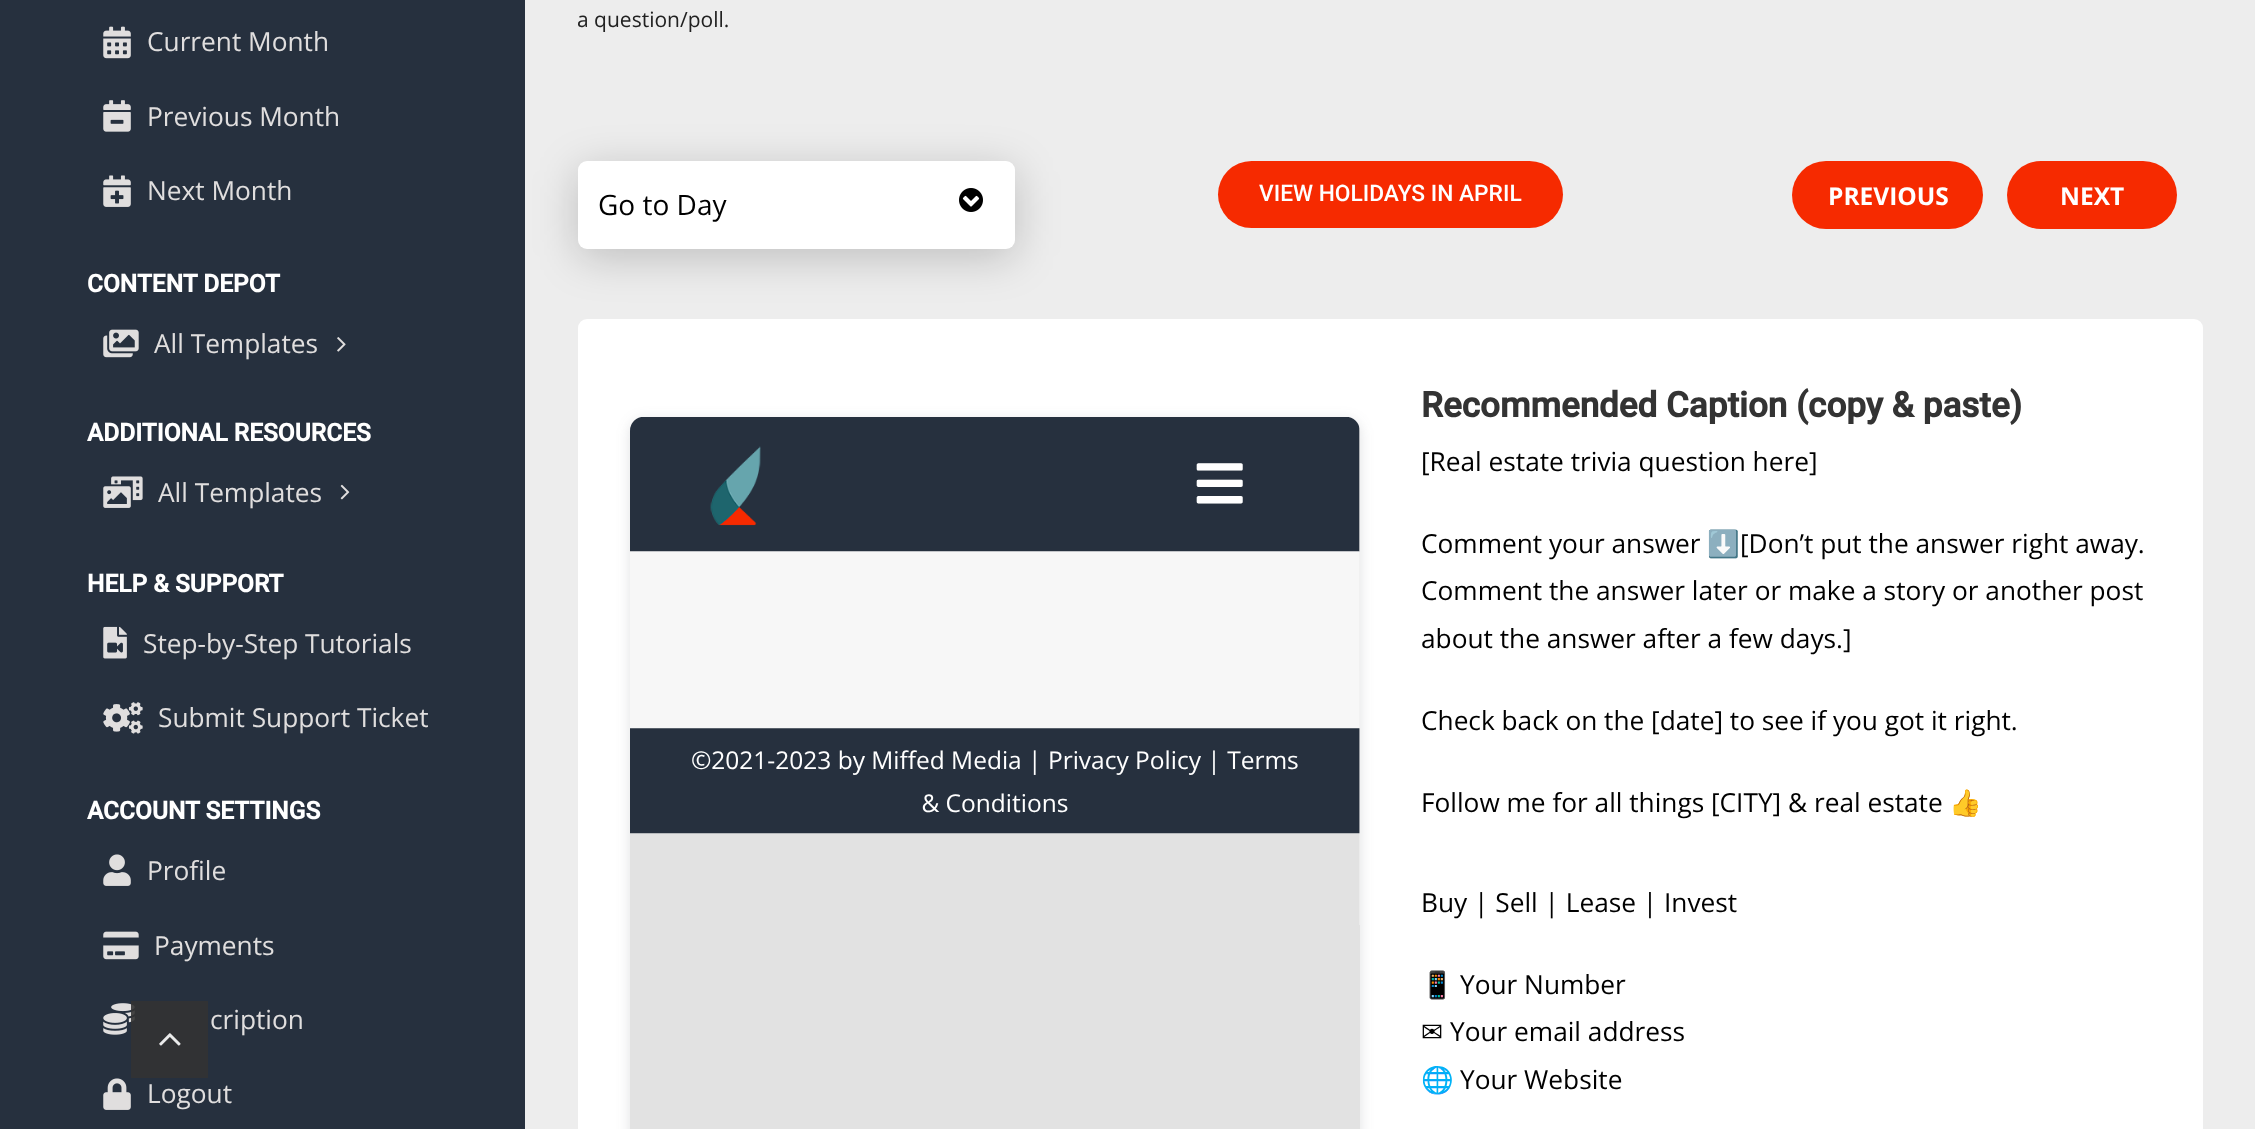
<svg xmlns="http://www.w3.org/2000/svg" width="2255" height="1129">
<rect width="100%" height="100%" fill="#ededed"/>
<rect x="578" y="319" width="1625" height="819" rx="9" fill="#fff"/>
<rect x="578" y="170" width="437" height="87" rx="9" fill="#00000033" filter="blur(22px)"/>
<rect width="525" height="1129" fill="#26303e"/>
<image x="103" y="26" width="28" height="33" href="media/1.png"/>
<text x="147" y="51" style="font-family:Open Sans;font-size:26.25px;fill:#e0dede">Current Month</text>
<image x="103" y="100" width="28" height="32" href="media/2.png"/>
<text x="147" y="126" style="font-family:Open Sans;font-size:26.25px;fill:#e0dede">Previous Month</text>
<image x="103" y="175" width="28" height="32" href="media/3.png"/>
<text x="147" y="200" style="font-family:Open Sans;font-size:26.25px;fill:#e0dede">Next Month</text>
<text x="87" y="292" style="font-family:Roboto;font-size:24.5px;font-weight:bold;fill:#fff">CONTENT DEPOT</text>
<image x="103" y="329" width="36" height="29" href="media/4.png"/>
<text x="154" y="353" style="font-family:Open Sans;font-size:26.25px;fill:#e0dede">All Templates</text>
<image x="337" y="337" width="9" height="15" href="media/5.png"/>
<text x="87" y="441" style="font-family:Roboto;font-size:24.5px;font-weight:bold;fill:#fff">ADDITIONAL RESOURCES</text>
<image x="103" y="476" width="40" height="32" href="media/6.png"/>
<text x="158" y="502" style="font-family:Open Sans;font-size:26.25px;fill:#e0dede">All Templates</text>
<image x="340" y="484" width="10" height="16" href="media/7.png"/>
<text x="87" y="592" style="font-family:Roboto;font-size:24.5px;font-weight:bold;fill:#fff">HELP &amp; SUPPORT</text>
<image x="103" y="626" width="24" height="33" href="media/8.png"/>
<text x="143" y="653" style="font-family:Open Sans;font-size:26.25px;fill:#e0dede">Step-by-Step Tutorials</text>
<image x="103" y="702" width="40" height="32" href="media/9.png"/>
<text x="158" y="727" style="font-family:Open Sans;font-size:26.25px;fill:#e0dede">Submit Support Ticket</text>
<text x="87" y="819" style="font-family:Roboto;font-size:24.5px;font-weight:bold;fill:#fff">ACCOUNT SETTINGS</text>
<image x="103" y="854" width="28" height="32" href="media/10.png"/>
<text x="147" y="880" style="font-family:Open Sans;font-size:26.25px;fill:#e0dede">Profile</text>
<image x="103" y="931" width="36" height="29" href="media/11.png"/>
<text x="154" y="955" style="font-family:Open Sans;font-size:26.25px;fill:#e0dede">Payments</text>
<image x="103" y="1003" width="32" height="32" href="media/12.png"/>
<text x="210" y="1029" style="font-family:Open Sans;font-size:26.25px;fill:#e0dede">cription</text>
<image x="103" y="1078" width="28" height="32" href="media/13.png"/>
<text x="147" y="1103" style="font-family:Open Sans;font-size:26.25px;fill:#e0dede">Logout</text>
<text x="577" y="27" style="font-family:Open Sans;font-size:21px;fill:#212121">a question/poll.</text>
<rect x="578" y="161" width="437" height="88" rx="9" fill="#fff"/>
<text x="598" y="215" style="font-family:Open Sans;font-size:28px;fill:#000">Go to Day</text>
<image x="959" y="188" width="24" height="24" href="media/14.png"/>
<rect x="1218" y="161" width="345" height="67" rx="33.5" fill="#f62a00"/>
<text x="1259" y="201" style="font-family:Roboto;font-size:22.75px;font-weight:500;fill:#fff">VIEW HOLIDAYS IN APRIL</text>
<rect x="1792" y="161" width="191" height="68" rx="34" fill="#f62a00"/>
<text x="1828" y="205" style="font-family:Open Sans;font-size:24.5px;font-weight:bold;fill:#fff">PREVIOUS</text>
<rect x="2007" y="161" width="170" height="68" rx="34" fill="#f62a00"/>
<text x="2060" y="205" style="font-family:Open Sans;font-size:24.5px;font-weight:bold;fill:#fff">NEXT</text>
<rect x="630" y="420" width="730" height="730" rx="14" fill="#3f455129" filter="blur(7px)"/>
<image x="630" y="417" width="730" height="712" href="media/15.png"/>
<text x="1421" y="417" style="font-family:Roboto;font-size:35px;font-weight:bold;fill:#333">Recommended Caption (copy &amp; paste)</text>
<text x="1421" y="471" style="font-family:Open Sans;font-size:26.25px;fill:#000">[Real estate trivia question here]</text>
<text x="1421" y="553" style="font-family:Open Sans;font-size:26.25px;fill:#000">Comment your answer</text>
<text x="1707" y="553" style="font-family:Noto Color Emoji;font-size:26.25px;fill:#000">⬇️</text>
<text x="1740" y="553" style="font-family:Open Sans;font-size:26.25px;fill:#000">[Don’t put the answer right away.</text>
<text x="1421" y="600" style="font-family:Open Sans;font-size:26.25px;fill:#000">Comment the answer later or make a story or another post</text>
<text x="1421" y="648" style="font-family:Open Sans;font-size:26.25px;fill:#000">about the answer after a few days.]</text>
<text x="1421" y="730" style="font-family:Open Sans;font-size:26.25px;fill:#000">Check back on the [date] to see if you got it right.</text>
<text x="1421" y="812" style="font-family:Open Sans;font-size:26.25px;fill:#000">Follow me for all things [CITY] &amp; real estate</text>
<text x="1949" y="812" style="font-family:Noto Color Emoji;font-size:26.25px;fill:#000">👍</text>
<text x="1421" y="912" style="font-family:Open Sans;font-size:26.25px;fill:#000">Buy | Sell | Lease | Invest</text>
<text x="1421" y="994" style="font-family:Noto Color Emoji;font-size:26.25px;fill:#000">📱</text>
<text x="1460" y="994" style="font-family:Open Sans;font-size:26.25px;fill:#000">Your Number</text>
<text x="1421" y="1041" style="font-family:DejaVu Sans;font-size:26.25px;fill:#000">✉</text>
<text x="1450" y="1041" style="font-family:Open Sans;font-size:26.25px;fill:#000">Your email address</text>
<text x="1421" y="1089" style="font-family:Noto Color Emoji;font-size:26.25px;fill:#000">🌐</text>
<text x="1460" y="1089" style="font-family:Open Sans;font-size:26.25px;fill:#000">Your Website</text>
<rect x="131" y="1001" width="77" height="77" fill="#333333e6"/>
<image x="159" y="1033" width="22" height="13" href="media/16.png"/>
</svg>
